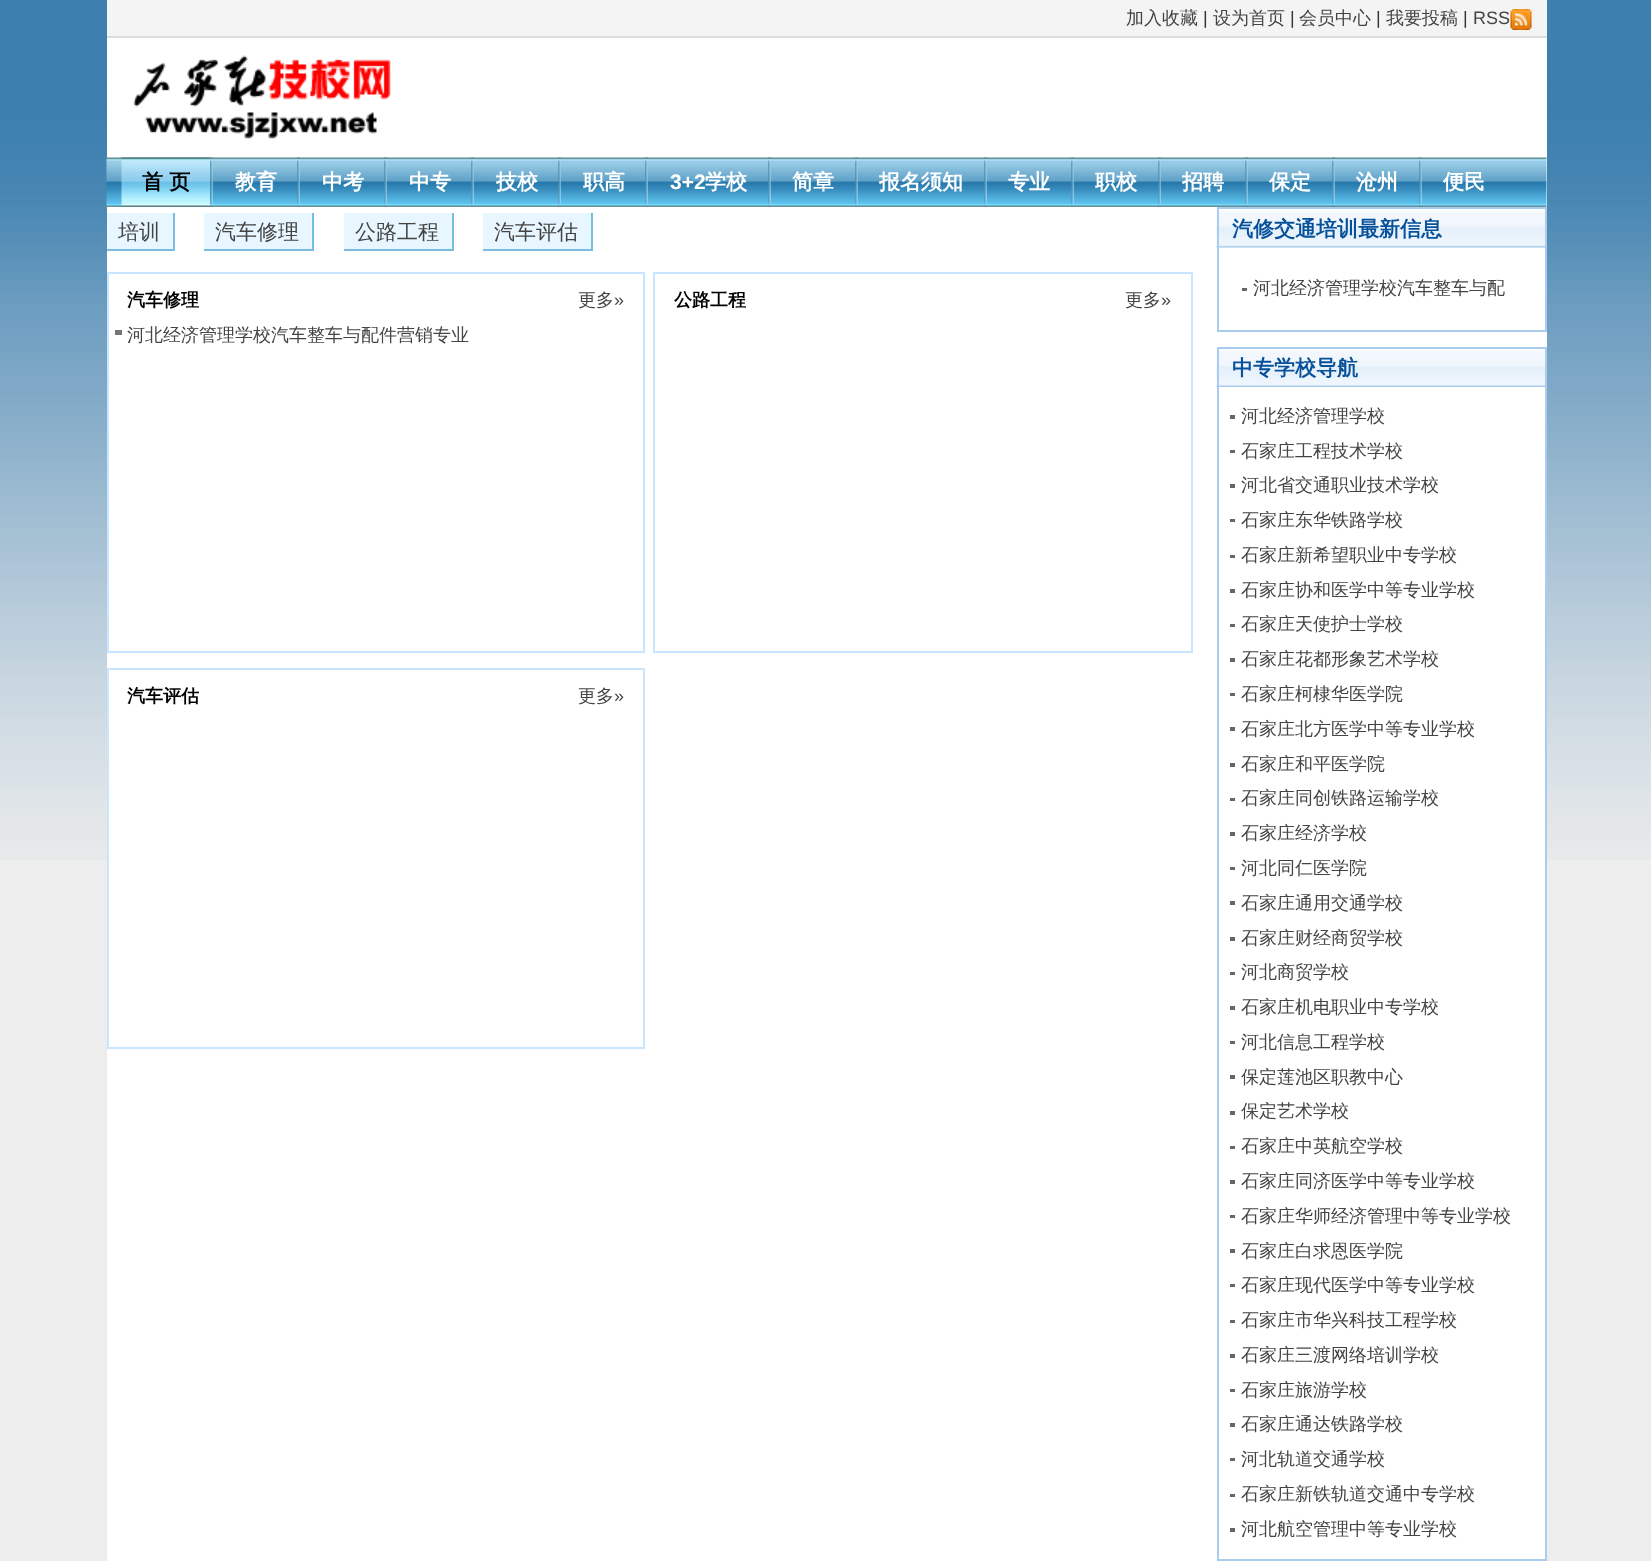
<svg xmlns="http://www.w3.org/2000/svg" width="1651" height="1561">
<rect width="100%" height="100%" fill="#ededed"/>
<image x="0" y="0" width="1651" height="860" href="media/1.png"/>
<rect x="107" y="38" width="1440" height="1523" fill="#fff"/>
<rect x="107" y="36" width="1440" height="2" fill="#dcdcdc"/>
<rect x="107" width="1440" height="36" fill="#f4f4f4"/>
<text x="1126" y="24" style="font-family:WenQuanYi Zen Hei;font-size:18px;font-weight:500;fill:#444">加入收藏</text>
<text x="1203" y="24" style="font-family:Liberation Sans;font-size:18px;fill:#333">|</text>
<text x="1213" y="24" style="font-family:WenQuanYi Zen Hei;font-size:18px;font-weight:500;fill:#444">设为首页</text>
<text x="1290" y="24" style="font-family:Liberation Sans;font-size:18px;fill:#333">|</text>
<text x="1299" y="24" style="font-family:WenQuanYi Zen Hei;font-size:18px;font-weight:500;fill:#444">会员中心</text>
<text x="1376" y="24" style="font-family:Liberation Sans;font-size:18px;fill:#333">|</text>
<text x="1386" y="24" style="font-family:WenQuanYi Zen Hei;font-size:18px;font-weight:500;fill:#444">我要投稿</text>
<text x="1463" y="24" style="font-family:Liberation Sans;font-size:18px;fill:#333">|</text>
<text x="1473" y="24" style="font-family:Liberation Sans;font-size:18px;fill:#444">RSS</text>
<image x="1510" y="9" width="22" height="21" href="media/2.png"/>
<image x="133" y="55" width="258" height="84" href="media/3.png"/>
<image x="106" y="157" width="1441" height="50" href="media/4.png"/>
<image x="210" y="157" width="3" height="50" href="media/5.png"/>
<image x="121" y="157" width="89" height="50" href="media/6.png"/>
<text x="142" y="189" style="font-family:WenQuanYi Zen Hei;font-size:21px;font-weight:bold;fill:#000">首 页</text>
<image x="297" y="157" width="3" height="50" href="media/7.png"/>
<text x="235" y="189" style="font-family:WenQuanYi Zen Hei;font-size:21px;font-weight:bold;fill:#fff">教育</text>
<image x="384" y="157" width="3" height="50" href="media/7.png"/>
<text x="322" y="189" style="font-family:WenQuanYi Zen Hei;font-size:21px;font-weight:bold;fill:#fff">中考</text>
<image x="471" y="157" width="3" height="50" href="media/7.png"/>
<text x="409" y="189" style="font-family:WenQuanYi Zen Hei;font-size:21px;font-weight:bold;fill:#fff">中专</text>
<image x="558" y="157" width="3" height="50" href="media/7.png"/>
<text x="496" y="189" style="font-family:WenQuanYi Zen Hei;font-size:21px;font-weight:bold;fill:#fff">技校</text>
<image x="645" y="157" width="3" height="50" href="media/5.png"/>
<text x="583" y="189" style="font-family:WenQuanYi Zen Hei;font-size:21px;font-weight:bold;fill:#fff">职高</text>
<image x="768" y="157" width="3" height="50" href="media/5.png"/>
<text x="670" y="189" style="font-family:Liberation Sans;font-size:21px;font-weight:bold;fill:#fff">3+2</text>
<text x="705" y="189" style="font-family:WenQuanYi Zen Hei;font-size:21px;font-weight:bold;fill:#fff">学校</text>
<image x="855" y="157" width="3" height="50" href="media/5.png"/>
<text x="792" y="189" style="font-family:WenQuanYi Zen Hei;font-size:21px;font-weight:bold;fill:#fff">简章</text>
<image x="984" y="157" width="3" height="50" href="media/5.png"/>
<text x="879" y="189" style="font-family:WenQuanYi Zen Hei;font-size:21px;font-weight:bold;fill:#fff">报名须知</text>
<image x="1071" y="157" width="3" height="50" href="media/7.png"/>
<text x="1008" y="189" style="font-family:WenQuanYi Zen Hei;font-size:21px;font-weight:bold;fill:#fff">专业</text>
<image x="1158" y="157" width="3" height="50" href="media/7.png"/>
<text x="1095" y="189" style="font-family:WenQuanYi Zen Hei;font-size:21px;font-weight:bold;fill:#fff">职校</text>
<image x="1245" y="157" width="3" height="50" href="media/7.png"/>
<text x="1182" y="189" style="font-family:WenQuanYi Zen Hei;font-size:21px;font-weight:bold;fill:#fff">招聘</text>
<image x="1332" y="157" width="3" height="50" href="media/7.png"/>
<text x="1269" y="189" style="font-family:WenQuanYi Zen Hei;font-size:21px;font-weight:bold;fill:#fff">保定</text>
<image x="1419" y="157" width="3" height="50" href="media/5.png"/>
<text x="1356" y="189" style="font-family:WenQuanYi Zen Hei;font-size:21px;font-weight:bold;fill:#fff">沧州</text>
<text x="1443" y="189" style="font-family:WenQuanYi Zen Hei;font-size:21px;font-weight:bold;fill:#fff">便民</text>
<rect x="107" y="213" width="66" height="36" fill="#e7f6ff"/>
<rect x="173" y="213" width="2" height="38" fill="#79bce0"/>
<rect x="107" y="249" width="67" height="2" fill="#79bce0"/>
<text x="118" y="239" style="font-family:WenQuanYi Zen Hei;font-size:21px;font-weight:500;fill:#444">培训</text>
<rect x="204" y="213" width="108" height="36" fill="#e7f6ff"/>
<rect x="312" y="213" width="2" height="38" fill="#79bce0"/>
<rect x="204" y="249" width="110" height="2" fill="#79bce0"/>
<text x="215" y="239" style="font-family:WenQuanYi Zen Hei;font-size:21px;font-weight:500;fill:#444">汽车修理</text>
<rect x="344" y="213" width="108" height="36" fill="#e7f6ff"/>
<rect x="452" y="213" width="2" height="38" fill="#79bce0"/>
<rect x="344" y="249" width="109" height="2" fill="#79bce0"/>
<text x="355" y="239" style="font-family:WenQuanYi Zen Hei;font-size:21px;font-weight:500;fill:#444">公路工程</text>
<rect x="483" y="213" width="108" height="36" fill="#e7f6ff"/>
<rect x="591" y="213" width="2" height="38" fill="#79bce0"/>
<rect x="483" y="249" width="110" height="2" fill="#79bce0"/>
<text x="494" y="239" style="font-family:WenQuanYi Zen Hei;font-size:21px;font-weight:500;fill:#444">汽车评估</text>
<rect x="108" y="273" width="536" height="379" fill="none" stroke="#c8e6ff" stroke-width="2"/>
<text x="127" y="306" style="font-family:WenQuanYi Zen Hei;font-size:18px;font-weight:bold;fill:#000">汽车修理</text>
<text x="578" y="306" style="font-family:WenQuanYi Zen Hei;font-size:18px;font-weight:500;fill:#444">更多</text>
<text x="614" y="306" style="font-family:Liberation Sans;font-size:18px;fill:#444">»</text>
<rect x="115" y="330" width="7" height="5" fill="#757575"/>
<text x="127" y="341" style="font-family:WenQuanYi Zen Hei;font-size:18px;font-weight:500;fill:#444">河北经济管理学校汽车整车与配件营销专业</text>
<rect x="654" y="273" width="538" height="379" fill="none" stroke="#c8e6ff" stroke-width="2"/>
<text x="674" y="306" style="font-family:WenQuanYi Zen Hei;font-size:18px;font-weight:bold;fill:#000">公路工程</text>
<text x="1125" y="306" style="font-family:WenQuanYi Zen Hei;font-size:18px;font-weight:500;fill:#444">更多</text>
<text x="1161" y="306" style="font-family:Liberation Sans;font-size:18px;fill:#444">»</text>
<rect x="108" y="669" width="536" height="379" fill="none" stroke="#c8e6ff" stroke-width="2"/>
<text x="127" y="702" style="font-family:WenQuanYi Zen Hei;font-size:18px;font-weight:bold;fill:#000">汽车评估</text>
<text x="578" y="702" style="font-family:WenQuanYi Zen Hei;font-size:18px;font-weight:500;fill:#444">更多</text>
<text x="614" y="702" style="font-family:Liberation Sans;font-size:18px;fill:#444">»</text>
<rect x="1219" y="247" width="326" height="1" fill="#e9f2fb"/>
<image x="1216" y="208" width="329" height="40" href="media/8.png"/>
<rect x="1217" y="207" width="330" height="2" fill="#ace"/>
<rect x="1545" y="207" width="2" height="125" fill="#ace"/>
<rect x="1217" y="207" width="2" height="41" fill="#ace"/>
<text x="1232" y="236" style="font-family:WenQuanYi Zen Hei;font-size:21px;font-weight:bold;fill:#07519a">汽修交通培训最新信息</text>
<rect x="1217" y="330" width="330" height="2" fill="#ace"/>
<rect x="1217" y="248" width="2" height="84" fill="#ace"/>
<rect x="1242" y="288" width="5" height="3" fill="#666"/>
<text x="1253" y="294" style="font-family:WenQuanYi Zen Hei;font-size:18px;font-weight:500;fill:#444">河北经济管理学校汽车整车与配</text>
<image x="1216" y="348" width="329" height="39" href="media/9.png"/>
<rect x="1217" y="347" width="330" height="2" fill="#ace"/>
<rect x="1545" y="347" width="2" height="1213" fill="#ace"/>
<rect x="1217" y="347" width="2" height="40" fill="#ace"/>
<text x="1232" y="375" style="font-family:WenQuanYi Zen Hei;font-size:21px;font-weight:bold;fill:#07519a">中专学校导航</text>
<rect x="1217" y="1559" width="330" height="2" fill="#ace"/>
<rect x="1217" y="387" width="2" height="1173" fill="#ace"/>
<rect x="1230" y="415" width="5" height="4" fill="#666"/>
<text x="1241" y="422" style="font-family:WenQuanYi Zen Hei;font-size:18px;font-weight:500;fill:#444">河北经济管理学校</text>
<rect x="1230" y="450" width="5" height="3" fill="#666"/>
<text x="1241" y="457" style="font-family:WenQuanYi Zen Hei;font-size:18px;font-weight:500;fill:#444">石家庄工程技术学校</text>
<rect x="1230" y="484" width="5" height="4" fill="#666"/>
<text x="1241" y="491" style="font-family:WenQuanYi Zen Hei;font-size:18px;font-weight:500;fill:#444">河北省交通职业技术学校</text>
<rect x="1230" y="519" width="5" height="3" fill="#666"/>
<text x="1241" y="526" style="font-family:WenQuanYi Zen Hei;font-size:18px;font-weight:500;fill:#444">石家庄东华铁路学校</text>
<rect x="1230" y="555" width="5" height="3" fill="#666"/>
<text x="1241" y="561" style="font-family:WenQuanYi Zen Hei;font-size:18px;font-weight:500;fill:#444">石家庄新希望职业中专学校</text>
<rect x="1230" y="589" width="5" height="4" fill="#666"/>
<text x="1241" y="596" style="font-family:WenQuanYi Zen Hei;font-size:18px;font-weight:500;fill:#444">石家庄协和医学中等专业学校</text>
<rect x="1230" y="624" width="5" height="3" fill="#666"/>
<text x="1241" y="630" style="font-family:WenQuanYi Zen Hei;font-size:18px;font-weight:500;fill:#444">石家庄天使护士学校</text>
<rect x="1230" y="658" width="5" height="4" fill="#666"/>
<text x="1241" y="665" style="font-family:WenQuanYi Zen Hei;font-size:18px;font-weight:500;fill:#444">石家庄花都形象艺术学校</text>
<rect x="1230" y="693" width="5" height="3" fill="#666"/>
<text x="1241" y="700" style="font-family:WenQuanYi Zen Hei;font-size:18px;font-weight:500;fill:#444">石家庄柯棣华医学院</text>
<rect x="1230" y="727" width="5" height="4" fill="#666"/>
<text x="1241" y="735" style="font-family:WenQuanYi Zen Hei;font-size:18px;font-weight:500;fill:#444">石家庄北方医学中等专业学校</text>
<rect x="1230" y="763" width="5" height="4" fill="#666"/>
<text x="1241" y="770" style="font-family:WenQuanYi Zen Hei;font-size:18px;font-weight:500;fill:#444">石家庄和平医学院</text>
<rect x="1230" y="798" width="5" height="3" fill="#666"/>
<text x="1241" y="804" style="font-family:WenQuanYi Zen Hei;font-size:18px;font-weight:500;fill:#444">石家庄同创铁路运输学校</text>
<rect x="1230" y="832" width="5" height="4" fill="#666"/>
<text x="1241" y="839" style="font-family:WenQuanYi Zen Hei;font-size:18px;font-weight:500;fill:#444">石家庄经济学校</text>
<rect x="1230" y="867" width="5" height="3" fill="#666"/>
<text x="1241" y="874" style="font-family:WenQuanYi Zen Hei;font-size:18px;font-weight:500;fill:#444">河北同仁医学院</text>
<rect x="1230" y="901" width="5" height="4" fill="#666"/>
<text x="1241" y="909" style="font-family:WenQuanYi Zen Hei;font-size:18px;font-weight:500;fill:#444">石家庄通用交通学校</text>
<rect x="1230" y="937" width="5" height="4" fill="#666"/>
<text x="1241" y="944" style="font-family:WenQuanYi Zen Hei;font-size:18px;font-weight:500;fill:#444">石家庄财经商贸学校</text>
<rect x="1230" y="972" width="5" height="3" fill="#666"/>
<text x="1241" y="978" style="font-family:WenQuanYi Zen Hei;font-size:18px;font-weight:500;fill:#444">河北商贸学校</text>
<rect x="1230" y="1006" width="5" height="4" fill="#666"/>
<text x="1241" y="1013" style="font-family:WenQuanYi Zen Hei;font-size:18px;font-weight:500;fill:#444">石家庄机电职业中专学校</text>
<rect x="1230" y="1041" width="5" height="3" fill="#666"/>
<text x="1241" y="1048" style="font-family:WenQuanYi Zen Hei;font-size:18px;font-weight:500;fill:#444">河北信息工程学校</text>
<rect x="1230" y="1075" width="5" height="4" fill="#666"/>
<text x="1241" y="1083" style="font-family:WenQuanYi Zen Hei;font-size:18px;font-weight:500;fill:#444">保定莲池区职教中心</text>
<rect x="1230" y="1111" width="5" height="4" fill="#666"/>
<text x="1241" y="1117" style="font-family:WenQuanYi Zen Hei;font-size:18px;font-weight:500;fill:#444">保定艺术学校</text>
<rect x="1230" y="1146" width="5" height="3" fill="#666"/>
<text x="1241" y="1152" style="font-family:WenQuanYi Zen Hei;font-size:18px;font-weight:500;fill:#444">石家庄中英航空学校</text>
<rect x="1230" y="1180" width="5" height="4" fill="#666"/>
<text x="1241" y="1187" style="font-family:WenQuanYi Zen Hei;font-size:18px;font-weight:500;fill:#444">石家庄同济医学中等专业学校</text>
<rect x="1230" y="1215" width="5" height="3" fill="#666"/>
<text x="1241" y="1222" style="font-family:WenQuanYi Zen Hei;font-size:18px;font-weight:500;fill:#444">石家庄华师经济管理中等专业学校</text>
<rect x="1230" y="1249" width="5" height="4" fill="#666"/>
<text x="1241" y="1257" style="font-family:WenQuanYi Zen Hei;font-size:18px;font-weight:500;fill:#444">石家庄白求恩医学院</text>
<rect x="1230" y="1284" width="5" height="3" fill="#666"/>
<text x="1241" y="1291" style="font-family:WenQuanYi Zen Hei;font-size:18px;font-weight:500;fill:#444">石家庄现代医学中等专业学校</text>
<rect x="1230" y="1320" width="5" height="3" fill="#666"/>
<text x="1241" y="1326" style="font-family:WenQuanYi Zen Hei;font-size:18px;font-weight:500;fill:#444">石家庄市华兴科技工程学校</text>
<rect x="1230" y="1354" width="5" height="4" fill="#666"/>
<text x="1241" y="1361" style="font-family:WenQuanYi Zen Hei;font-size:18px;font-weight:500;fill:#444">石家庄三渡网络培训学校</text>
<rect x="1230" y="1389" width="5" height="3" fill="#666"/>
<text x="1241" y="1396" style="font-family:WenQuanYi Zen Hei;font-size:18px;font-weight:500;fill:#444">石家庄旅游学校</text>
<rect x="1230" y="1423" width="5" height="4" fill="#666"/>
<text x="1241" y="1430" style="font-family:WenQuanYi Zen Hei;font-size:18px;font-weight:500;fill:#444">石家庄通达铁路学校</text>
<rect x="1230" y="1458" width="5" height="3" fill="#666"/>
<text x="1241" y="1465" style="font-family:WenQuanYi Zen Hei;font-size:18px;font-weight:500;fill:#444">河北轨道交通学校</text>
<rect x="1230" y="1494" width="5" height="3" fill="#666"/>
<text x="1241" y="1500" style="font-family:WenQuanYi Zen Hei;font-size:18px;font-weight:500;fill:#444">石家庄新铁轨道交通中专学校</text>
<rect x="1230" y="1528" width="5" height="4" fill="#666"/>
<text x="1241" y="1535" style="font-family:WenQuanYi Zen Hei;font-size:18px;font-weight:500;fill:#444">河北航空管理中等专业学校</text>
</svg>
